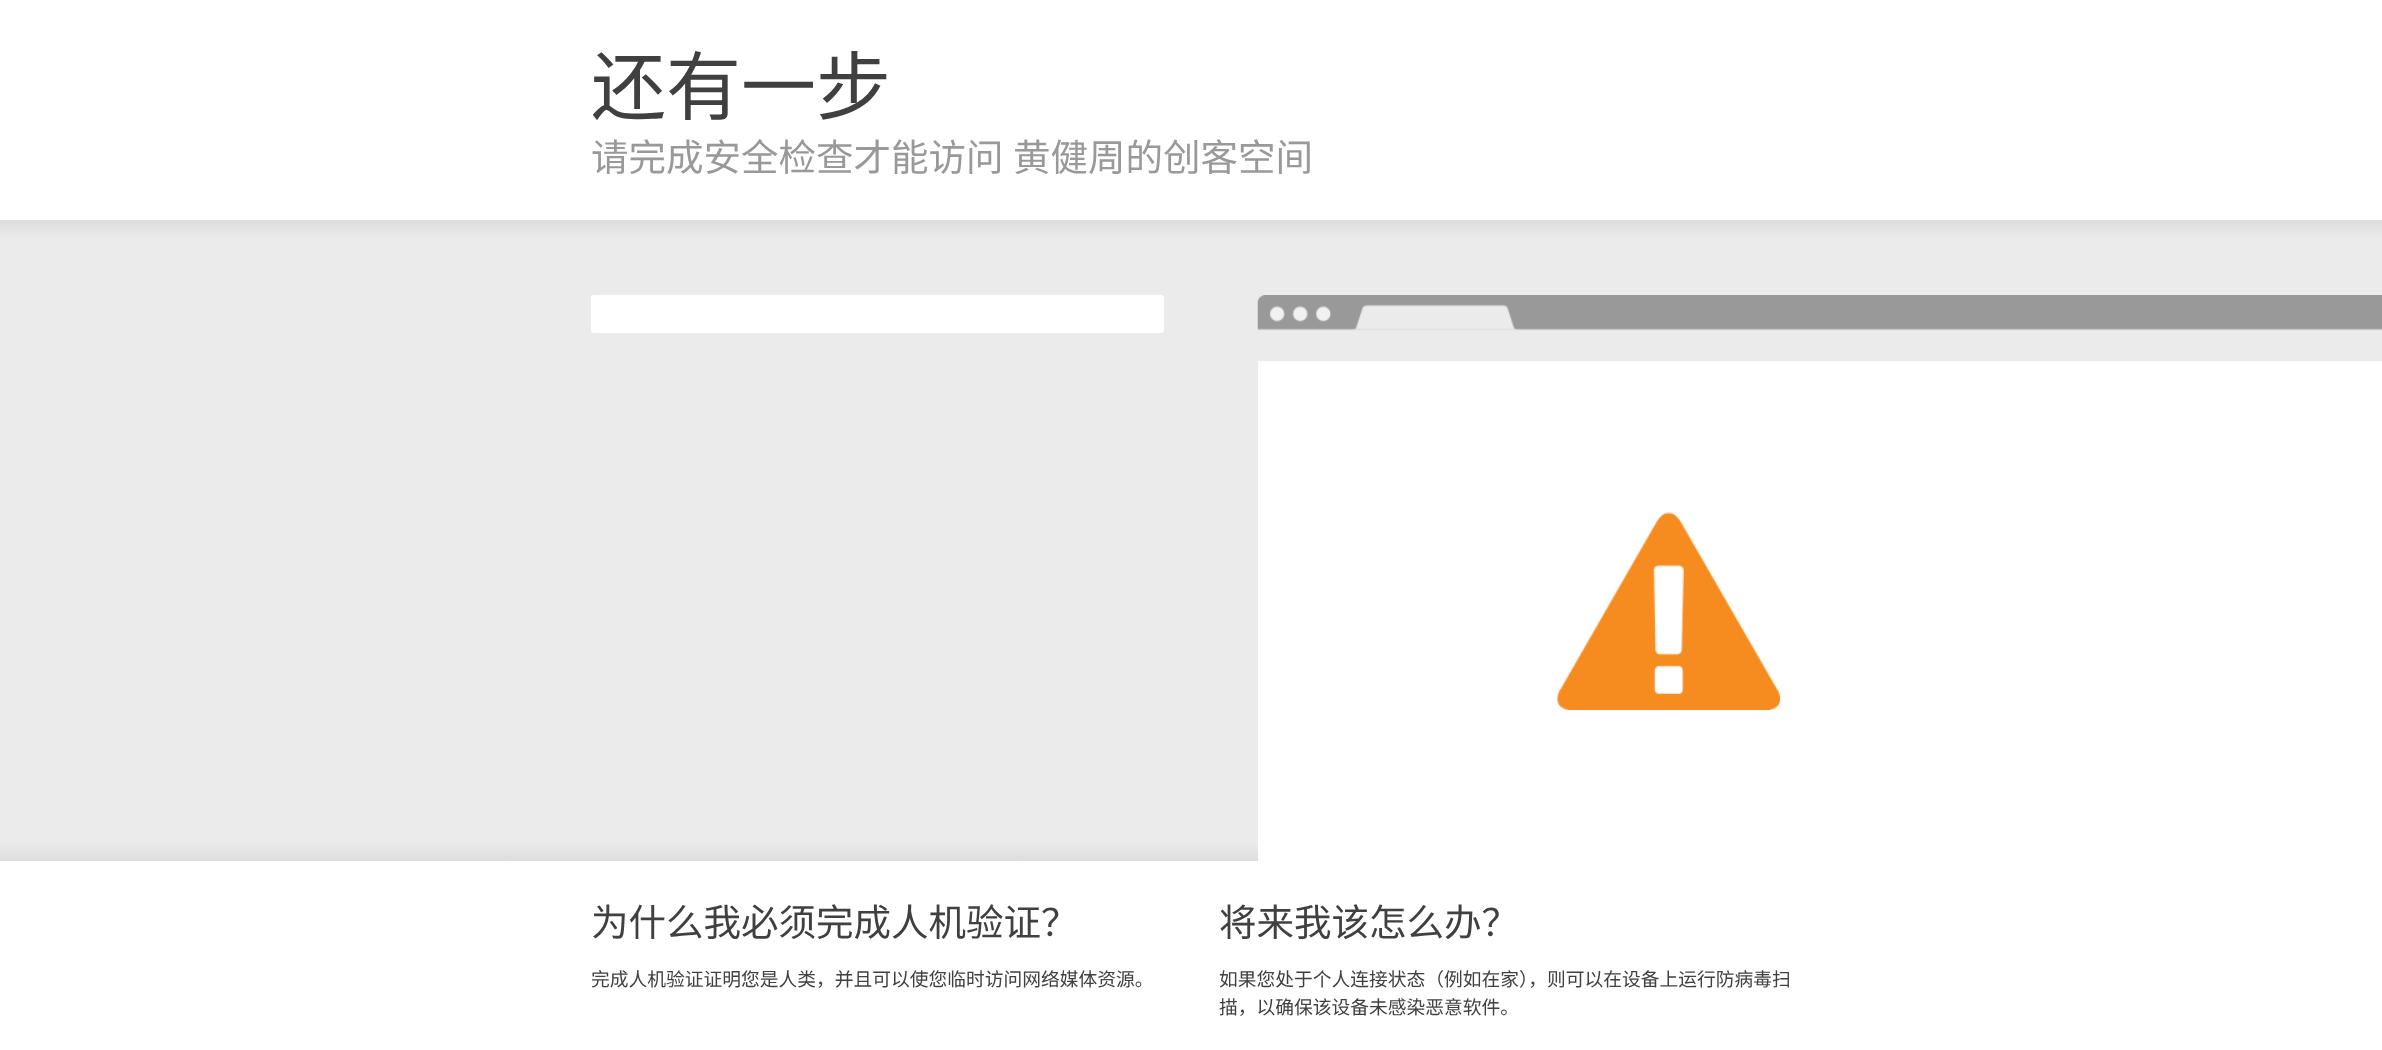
<svg xmlns="http://www.w3.org/2000/svg" width="2382" height="1050">
<defs>
<linearGradient id="g1" gradientUnits="userSpaceOnUse" x1="0" y1="220" x2="0" y2="861"><stop offset="0" stop-color="#dedede"/><stop offset="0.03" stop-color="#ebebeb"/><stop offset="0.97" stop-color="#ebebeb"/><stop offset="1" stop-color="#dedede"/></linearGradient>
</defs>
<rect width="100%" height="100%" fill="#fff"/>
<text x="591" y="114" style="font-family:Noto Sans CJK SC;font-size:75px;fill:#404040">还有一步</text>
<text x="591" y="171" style="font-family:Noto Sans CJK SC;font-size:37.5px;fill:#999">请完成安全检查才能访问</text>
<text x="1013" y="171" style="font-family:Noto Sans CJK SC;font-size:37.5px;fill:#999">黄健周的创客空间</text>
<rect y="220" width="2382" height="641" fill="url(#g1)"/>
<rect x="591" y="295" width="573" height="38" rx="2.5" fill="#fff"/>
<path d="M1264 295h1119v566h-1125v-560c0-3.5 2.5-6 6-6z" fill="#fff"/>
<image x="1257" y="295" width="1125" height="67" href="media/1.png"/>
<image x="1557" y="512" width="223" height="198" href="media/2.png"/>
<text x="591" y="936" style="font-family:Noto Sans CJK SC;font-size:37.5px;fill:#404040">为什么我必须完成人机验证？</text>
<text x="591" y="986" style="font-family:Noto Sans CJK SC;font-size:18.75px;fill:#404040">完成人机验证证明您是人类，并且可以使您临时访问网络媒体资源。</text>
<text x="1219" y="936" style="font-family:Noto Sans CJK SC;font-size:37.5px;fill:#404040">将来我该怎么办？</text>
<text x="1219" y="986" style="font-family:Noto Sans CJK SC;font-size:18.75px;fill:#404040">如果您处于个人连接状态（例如在家），则可以在设备上运行防病毒扫</text>
<text x="1219" y="1014" style="font-family:Noto Sans CJK SC;font-size:18.75px;fill:#404040">描，以确保该设备未感染恶意软件。</text>
</svg>
